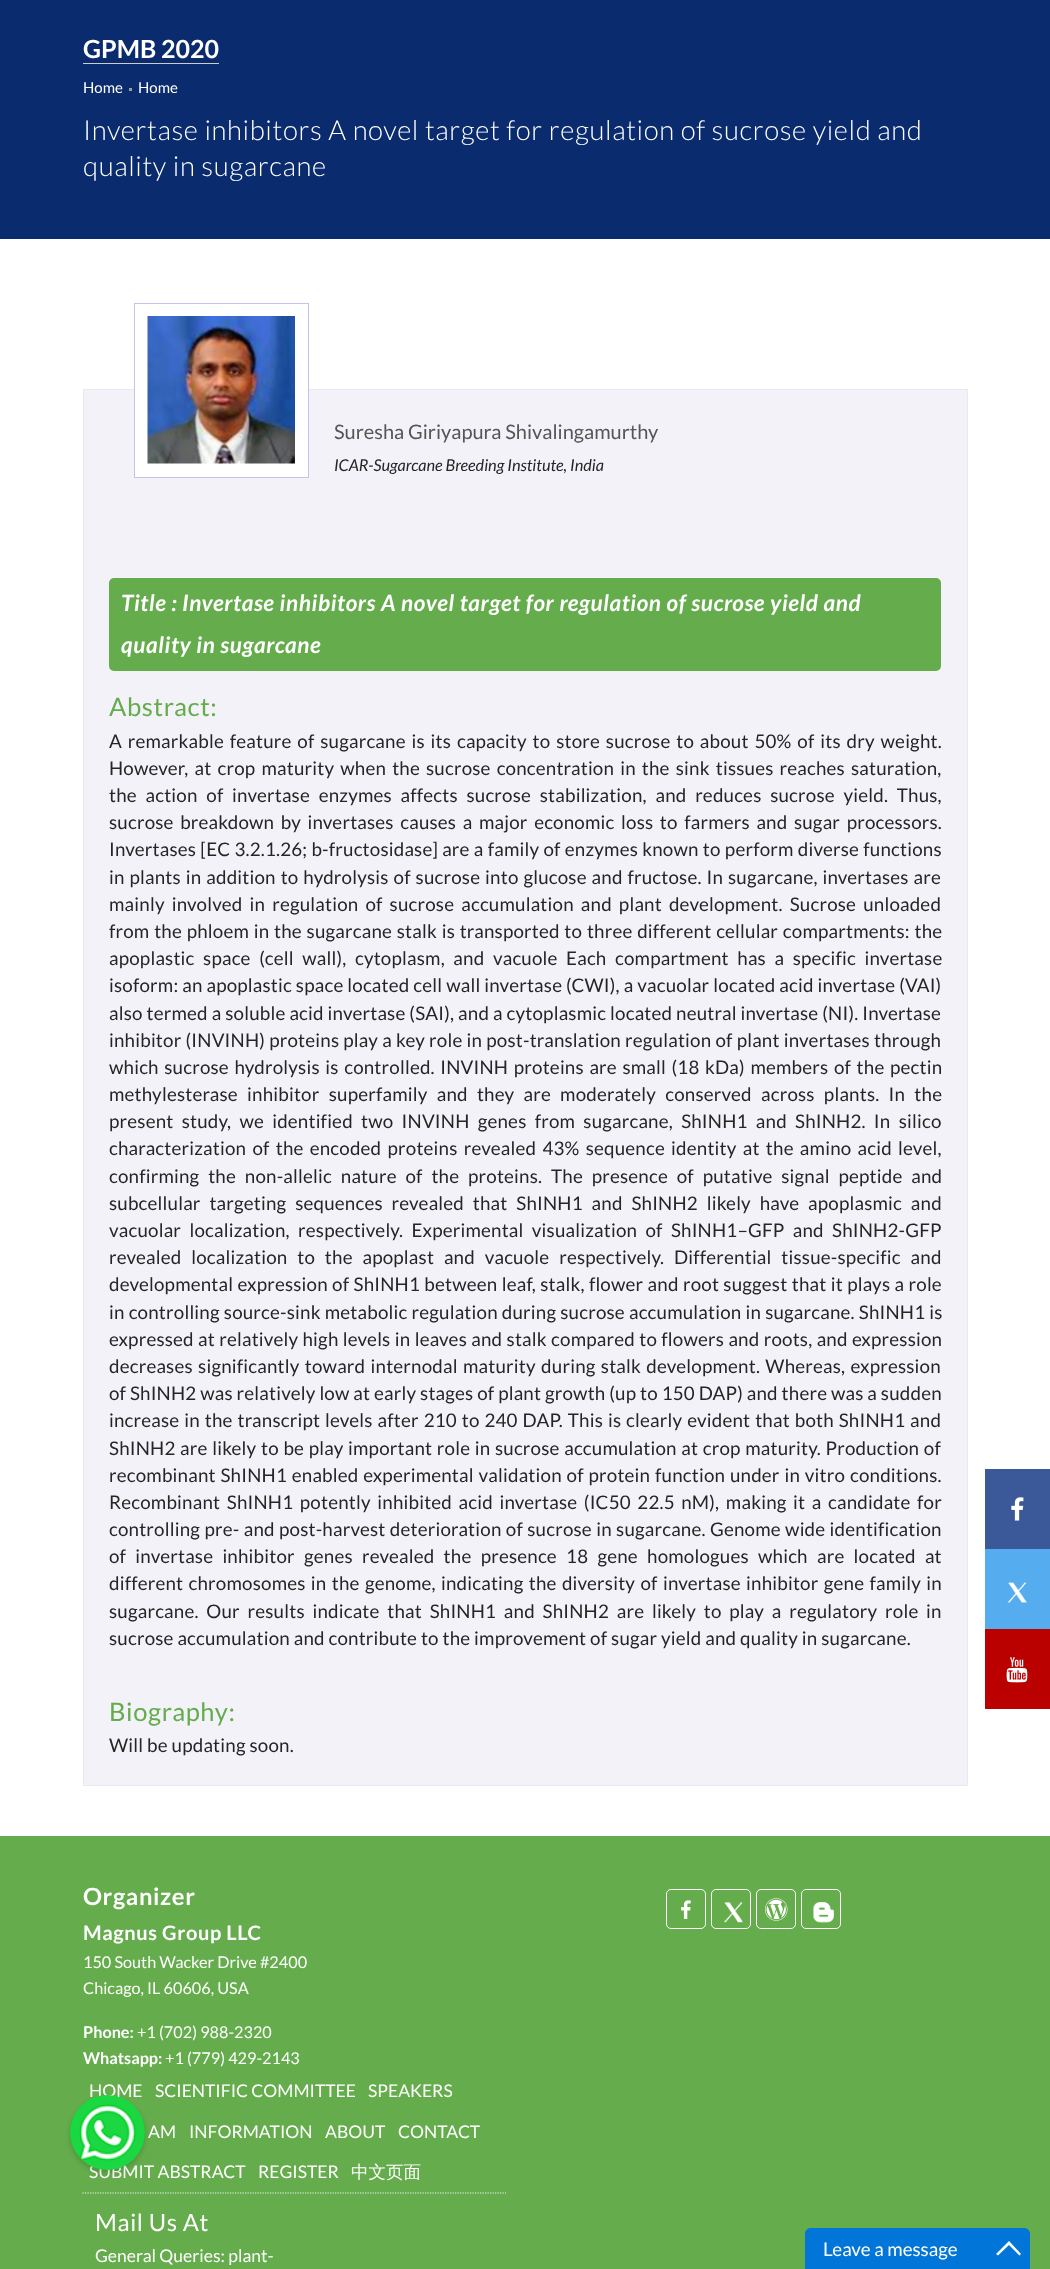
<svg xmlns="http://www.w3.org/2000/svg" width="1050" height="2269">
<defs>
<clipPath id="clip1"><rect x="70" y="2095" width="75" height="75" rx="37.5"/></clipPath>
</defs>
<rect width="100%" height="100%" fill="#fff"/>
<rect width="1050" height="239" fill="#0a2b6d"/>
<text x="83" y="58" style="font-family:Lato;font-size:25px;font-weight:bold;fill:#fff">GPMB 2020</text>
<rect x="83" y="63" width="136" height="1" fill="#ccc"/>
<text x="83" y="93" style="font-family:Lato;font-size:15px;fill:#fff">Home</text>
<rect x="129" y="88" width="3" height="3" fill="#9d9d9d"/>
<text x="138" y="93" style="font-family:Lato;font-size:15px;fill:#fff">Home</text>
<text x="83" y="140" style="font-family:Lato;font-size:27.5px;font-weight:300;letter-spacing:0.62px;fill:#fff">Invertase inhibitors A novel target for regulation of sucrose yield and</text>
<text x="83" y="176" style="font-family:Lato;font-size:27.5px;font-weight:300;letter-spacing:0.62px;fill:#fff">quality in sugarcane</text>
<rect x="83.5" y="389.5" width="884" height="1396" fill="#f3f2f9" stroke="#ebe8f6"/>
<rect x="135" y="389" width="173" height="88" fill="#fff"/>
<rect x="134.5" y="303.5" width="174" height="174" fill="none" stroke="#c4c4e8"/>
<image x="147" y="316" width="148" height="148" href="media/1.png"/>
<text x="334" y="439" style="font-family:Lato;font-size:20px;fill:#565656">Suresha Giriyapura Shivalingamurthy</text>
<text x="334" y="471" style="font-family:Lato;font-size:16.25px;font-style:italic;fill:#252525">ICAR-Sugarcane Breeding Institute, India</text>
<rect x="109" y="578" width="832" height="93" rx="5" fill="#65ac4c"/>
<text x="121" y="611" style="font-family:Lato;font-size:22.5px;font-weight:bold;font-style:italic;letter-spacing:0.62px;fill:#fff">Title : Invertase inhibitors A novel target for regulation of sucrose yield and</text>
<text x="121" y="653" style="font-family:Lato;font-size:22.5px;font-weight:bold;font-style:italic;letter-spacing:0.62px;fill:#fff">quality in sugarcane</text>
<text x="109" y="716" style="font-family:Lato;font-size:25.5px;letter-spacing:0.62px;fill:#65ac4c">Abstract:</text>
<text x="109" y="748" word-spacing="2" style="font-family:Lato;font-size:18.75px;letter-spacing:0.19px;fill:#252525">A remarkable feature of sugarcane is its capacity to store sucrose to about 50% of its dry weight.</text>
<text x="109" y="775" word-spacing="2.25" style="font-family:Lato;font-size:18.75px;letter-spacing:0.19px;fill:#252525">However, at crop maturity when the sucrose concentration in the sink tissues reaches saturation,</text>
<text x="109" y="802" word-spacing="4.9" style="font-family:Lato;font-size:18.75px;letter-spacing:0.19px;fill:#252525">the action of invertase enzymes affects sucrose stabilization, and reduces sucrose yield. Thus,</text>
<text x="109" y="829" word-spacing="2.75" style="font-family:Lato;font-size:18.75px;letter-spacing:0.19px;fill:#252525">sucrose breakdown by invertases causes a major economic loss to farmers and sugar processors.</text>
<text x="109" y="856" word-spacing="0.4" style="font-family:Lato;font-size:18.75px;letter-spacing:0.19px;fill:#252525">Invertases [EC 3.2.1.26; b-fructosidase] are a family of enzymes known to perform diverse functions</text>
<text x="109" y="884" word-spacing="1.1" style="font-family:Lato;font-size:18.75px;letter-spacing:0.19px;fill:#252525">in plants in addition to hydrolysis of sucrose into glucose and fructose. In sugarcane, invertases are</text>
<text x="109" y="911" word-spacing="3.25" style="font-family:Lato;font-size:18.75px;letter-spacing:0.19px;fill:#252525">mainly involved in regulation of sucrose accumulation and plant development. Sucrose unloaded</text>
<text x="109" y="938" word-spacing="0.9" style="font-family:Lato;font-size:18.75px;letter-spacing:0.19px;fill:#252525">from the phloem in the sugarcane stalk is transported to three different cellular compartments: the</text>
<text x="109" y="965" word-spacing="4.75" style="font-family:Lato;font-size:18.75px;letter-spacing:0.19px;fill:#252525">apoplastic space (cell wall), cytoplasm, and vacuole Each compartment has a specific invertase</text>
<text x="109" y="992" word-spacing="0.1" style="font-family:Lato;font-size:18.75px;letter-spacing:0.19px;fill:#252525">isoform: an apoplastic space located cell wall invertase (CWI), a vacuolar located acid invertase (VAI)</text>
<text x="109" y="1020" word-spacing="0.1" style="font-family:Lato;font-size:18.75px;letter-spacing:0.19px;fill:#252525">also termed a soluble acid invertase (SAI), and a cytoplasmic located neutral invertase (NI). Invertase</text>
<text x="109" y="1047" word-spacing="0.3" style="font-family:Lato;font-size:18.75px;letter-spacing:0.19px;fill:#252525">inhibitor (INVINH) proteins play a key role in post-translation regulation of plant invertases through</text>
<text x="109" y="1074" word-spacing="1.75" style="font-family:Lato;font-size:18.75px;letter-spacing:0.19px;fill:#252525">which sucrose hydrolysis is controlled. INVINH proteins are small (18 kDa) members of the pectin</text>
<text x="109" y="1101" word-spacing="5.4" style="font-family:Lato;font-size:18.75px;letter-spacing:0.19px;fill:#252525">methylesterase inhibitor superfamily and they are moderately conserved across plants. In the</text>
<text x="109" y="1128" word-spacing="4.4" style="font-family:Lato;font-size:18.75px;letter-spacing:0.19px;fill:#252525">present study, we identified two INVINH genes from sugarcane, ShINH1 and ShINH2. In silico</text>
<text x="109" y="1155" word-spacing="2.4" style="font-family:Lato;font-size:18.75px;letter-spacing:0.19px;fill:#252525">characterization of the encoded proteins revealed 43% sequence identity at the amino acid level,</text>
<text x="109" y="1183" word-spacing="5" style="font-family:Lato;font-size:18.75px;letter-spacing:0.19px;fill:#252525">confirming the non-allelic nature of the proteins. The presence of putative signal peptide and</text>
<text x="109" y="1210" word-spacing="5" style="font-family:Lato;font-size:18.75px;letter-spacing:0.19px;fill:#252525">subcellular targeting sequences revealed that ShINH1 and ShINH2 likely have apoplasmic and</text>
<text x="109" y="1237" word-spacing="4.5" style="font-family:Lato;font-size:18.75px;letter-spacing:0.19px;fill:#252525">vacuolar localization, respectively. Experimental visualization of ShINH1–GFP and ShINH2-GFP</text>
<text x="109" y="1264" word-spacing="6" style="font-family:Lato;font-size:18.75px;letter-spacing:0.19px;fill:#252525">revealed localization to the apoplast and vacuole respectively. Differential tissue-specific and</text>
<text x="109" y="1291" word-spacing="0.5" style="font-family:Lato;font-size:18.75px;letter-spacing:0.19px;fill:#252525">developmental expression of ShINH1 between leaf, stalk, flower and root suggest that it plays a role</text>
<text x="109" y="1319" word-spacing="0.25" style="font-family:Lato;font-size:18.75px;letter-spacing:0.19px;fill:#252525">in controlling source-sink metabolic regulation during sucrose accumulation in sugarcane. ShINH1 is</text>
<text x="109" y="1346" word-spacing="0.5" style="font-family:Lato;font-size:18.75px;letter-spacing:0.19px;fill:#252525">expressed at relatively high levels in leaves and stalk compared to flowers and roots, and expression</text>
<text x="109" y="1373" word-spacing="1.5" style="font-family:Lato;font-size:18.75px;letter-spacing:0.19px;fill:#252525">decreases significantly toward internodal maturity during stalk development. Whereas, expression</text>
<text x="109" y="1400" style="font-family:Lato;font-size:18.75px;letter-spacing:0.19px;fill:#252525">of ShINH2 was relatively low at early stages of plant growth (up to 150 DAP) and there was a sudden</text>
<text x="109" y="1427" word-spacing="1.1" style="font-family:Lato;font-size:18.75px;letter-spacing:0.19px;fill:#252525">increase in the transcript levels after 210 to 240 DAP. This is clearly evident that both ShINH1 and</text>
<text x="109" y="1455" word-spacing="0.8" style="font-family:Lato;font-size:18.75px;letter-spacing:0.19px;fill:#252525">ShINH2 are likely to be play important role in sucrose accumulation at crop maturity. Production of</text>
<text x="109" y="1482" word-spacing="1" style="font-family:Lato;font-size:18.75px;letter-spacing:0.19px;fill:#252525">recombinant ShINH1 enabled experimental validation of protein function under in vitro conditions.</text>
<text x="109" y="1509" word-spacing="2.75" style="font-family:Lato;font-size:18.75px;letter-spacing:0.19px;fill:#252525">Recombinant ShINH1 potently inhibited acid invertase (IC50 22.5 nM), making it a candidate for</text>
<text x="109" y="1536" word-spacing="0.5" style="font-family:Lato;font-size:18.75px;letter-spacing:0.19px;fill:#252525">controlling pre- and post-harvest deterioration of sucrose in sugarcane. Genome wide identification</text>
<text x="109" y="1563" word-spacing="5.4" style="font-family:Lato;font-size:18.75px;letter-spacing:0.19px;fill:#252525">of invertase inhibitor genes revealed the presence 18 gene homologues which are located at</text>
<text x="109" y="1590" word-spacing="1.5" style="font-family:Lato;font-size:18.75px;letter-spacing:0.19px;fill:#252525">different chromosomes in the genome, indicating the diversity of invertase inhibitor gene family in</text>
<text x="109" y="1618" word-spacing="3.9" style="font-family:Lato;font-size:18.75px;letter-spacing:0.19px;fill:#252525">sugarcane. Our results indicate that ShINH1 and ShINH2 are likely to play a regulatory role in</text>
<text x="109" y="1645" style="font-family:Lato;font-size:18.75px;letter-spacing:0.19px;fill:#252525">sucrose accumulation and contribute to the improvement of sugar yield and quality in sugarcane.</text>
<text x="109" y="1721" style="font-family:Lato;font-size:25.5px;letter-spacing:0.62px;fill:#65ac4c">Biography:</text>
<text x="109" y="1752" style="font-family:Lato;font-size:18.75px;letter-spacing:0.19px;fill:#252525">Will be updating soon.</text>
<rect x="985" y="1469" width="65" height="80" fill="#3b5998"/>
<image x="1011" y="1497" width="13" height="24" href="media/2.png"/>
<rect x="985" y="1549" width="65" height="80" fill="#55acee"/>
<image x="1007" y="1582" width="20" height="21" href="media/3.png"/>
<rect x="985" y="1629" width="65" height="80" fill="#b00"/>
<image x="1006" y="1657" width="22" height="26" href="media/4.png"/>
<rect y="1836" width="1050" height="433" fill="#65ac4c"/>
<text x="83" y="1905" style="font-family:Lato;font-size:23.75px;font-weight:bold;letter-spacing:0.62px;fill:#fff">Organizer</text>
<text x="83" y="1940" style="font-family:Lato;font-size:20px;font-weight:bold;letter-spacing:0.62px;fill:#fff">Magnus Group LLC</text>
<text x="83" y="1968" style="font-family:Lato;font-size:16.25px;fill:#fff">150 South Wacker Drive #2400</text>
<text x="83" y="1994" style="font-family:Lato;font-size:16.25px;fill:#fff">Chicago, IL 60606, USA</text>
<text x="83" y="2038" style="font-family:Lato;font-size:16.25px;font-weight:bold;fill:#fff">Phone:</text>
<text x="137" y="2038" style="font-family:Lato;font-size:16.25px;fill:#fff">+1 (702) 988-2320</text>
<text x="83" y="2064" style="font-family:Lato;font-size:16.25px;font-weight:bold;fill:#fff">Whatsapp:</text>
<text x="165" y="2064" style="font-family:Lato;font-size:16.25px;fill:#fff">+1 (779) 429-2143</text>
<path d="M82.5 2193h423.5" fill="none" stroke="#f1f1f1" stroke-width="1.2" stroke-dasharray="1.25 1.25"/>
<text x="89" y="2097" style="font-family:Lato;font-size:17.5px;fill:#fff">HOME</text>
<text x="155" y="2097" style="font-family:Lato;font-size:17.5px;fill:#fff">SCIENTIFIC COMMITTEE</text>
<text x="368" y="2097" style="font-family:Lato;font-size:17.5px;fill:#fff">SPEAKERS</text>
<text x="148" y="2138" style="font-family:Lato;font-size:17.5px;fill:#fff">AM</text>
<text x="189" y="2138" style="font-family:Lato;font-size:17.5px;fill:#fff">INFORMATION</text>
<text x="325" y="2138" style="font-family:Lato;font-size:17.5px;fill:#fff">ABOUT</text>
<text x="398" y="2138" style="font-family:Lato;font-size:17.5px;fill:#fff">CONTACT</text>
<text x="89" y="2178" style="font-family:Lato;font-size:17.5px;fill:#fff">SUBMIT ABSTRACT</text>
<text x="258" y="2178" style="font-family:Lato;font-size:17.5px;fill:#fff">REGISTER</text>
<text x="351" y="2178" style="font-family:WenQuanYi Zen Hei;font-size:17.5px;font-weight:500;fill:#fff">中文页面</text>
<text x="95" y="2231" style="font-family:Lato;font-size:23.75px;letter-spacing:0.62px;fill:#fff">Mail Us At</text>
<text x="95" y="2262" style="font-family:Lato;font-size:17.5px;fill:#fff">General Queries: plant-</text>
<rect x="666.5" y="1889.5" width="39" height="39" rx="4.5" fill="none" stroke="#fff"/>
<image x="681" y="1900" width="10" height="19" href="media/5.png"/>
<rect x="711.5" y="1889.5" width="39" height="39" rx="4.5" fill="none" stroke="#fff"/>
<image x="723" y="1902" width="20" height="21" href="media/6.png"/>
<rect x="756.5" y="1889.5" width="39" height="39" rx="4.5" fill="none" stroke="#fff"/>
<image x="765" y="1898" width="23" height="23" href="media/7.png"/>
<rect x="801.5" y="1889.5" width="39" height="39" rx="4.5" fill="none" stroke="#fff"/>
<image x="813" y="1902" width="21" height="21" href="media/8.png"/>
<rect x="70" y="2098" width="75" height="75" rx="37.5" fill="#00000029" filter="blur(2.5px)"/>
<g clip-path="url(#clip1)">
<rect x="70" y="2119" width="75" height="22" fill="#11b925"/>
</g>
<image x="70" y="2095" width="75" height="75" href="media/9.png"/>
<path d="M811 2228h213c3.5 0 6 2.5 6 6v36h-225v-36c0-3.5 2.5-6 6-6z" fill="#0275d8"/>
<text x="823" y="2256" style="font-family:Lato;font-size:18.75px;fill:#fff">Leave a message</text>
<path d="M1009 2241l12 13l-1.5 1.5l-10.5-10.5l-11 10.5l-2-1.5z" fill="#fff"/>
</svg>
